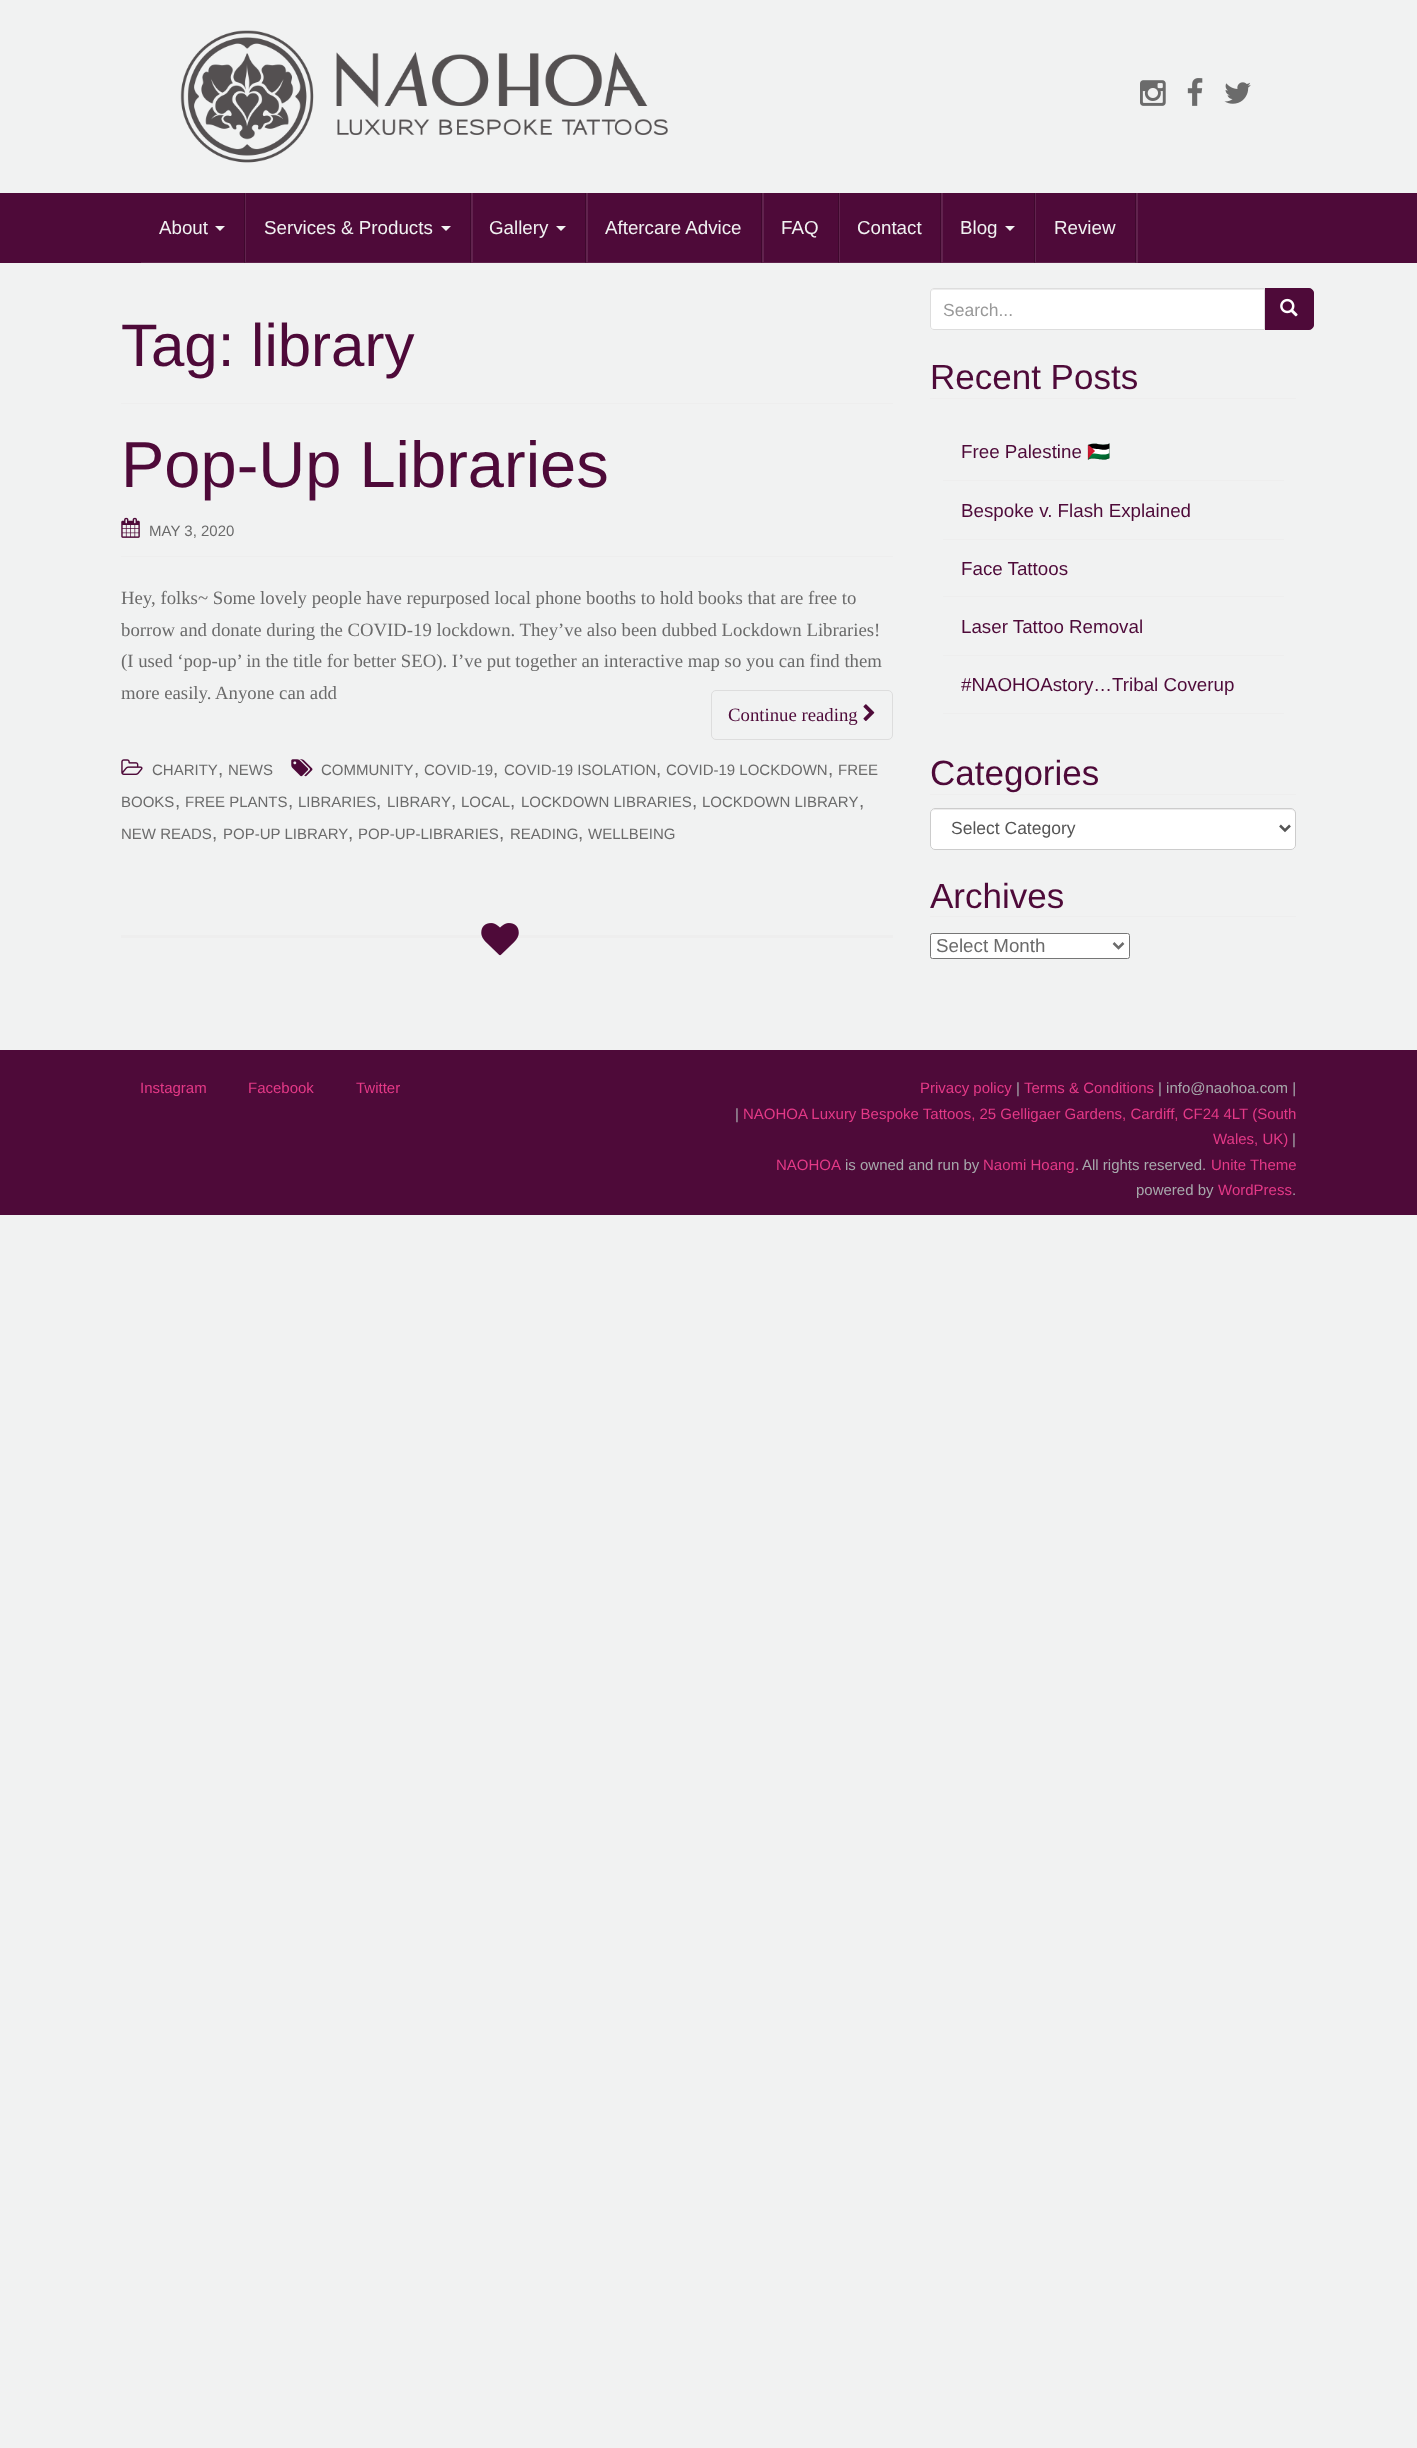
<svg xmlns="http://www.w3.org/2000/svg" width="1417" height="2448">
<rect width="100%" height="100%" fill="#f1f2f2"/>
<image x="180" y="30" width="488" height="133" href="media/1.png"/>
<image x="1140" y="80" width="26" height="26" href="media/2.png"/>
<image x="1187" y="78" width="16" height="28" href="media/3.png"/>
<image x="1224" y="82" width="27" height="22" href="media/4.png"/>
<rect y="193" width="1417" height="70" fill="#4e0a39"/>
<path d="M141 262v1h105v-70h-1v69z" fill="#60234d"/>
<rect x="244" y="193" width="1" height="70" fill="#00000033"/>
<text x="159" y="234" style="font-family:Liberation Sans;font-size:18.75px;fill:#f1f2f2">About</text>
<path d="M215 226h10l-5 5z" fill="#f1f2f2"/>
<path d="M246 262v1h227v-70h-2v69z" fill="#60234d"/>
<rect x="470" y="193" width="1" height="70" fill="#00000033"/>
<text x="264" y="234" style="font-family:Liberation Sans;font-size:18.75px;fill:#f1f2f2">Services &amp; Products</text>
<path d="M441 226h10l-5 5z" fill="#f1f2f2"/>
<path d="M473 262v1h115v-70h-2v69z" fill="#60234d"/>
<rect x="585" y="193" width="1" height="70" fill="#00000033"/>
<text x="489" y="234" style="font-family:Liberation Sans;font-size:18.75px;fill:#f1f2f2">Gallery</text>
<path d="M556 226h10l-5 5z" fill="#f1f2f2"/>
<path d="M588 262v1h176v-70h-2v69z" fill="#60234d"/>
<rect x="761" y="193" width="1" height="70" fill="#00000033"/>
<text x="605" y="234" style="font-family:Liberation Sans;font-size:18.75px;fill:#f1f2f2">Aftercare Advice</text>
<path d="M764 262v1h76v-70h-1v69z" fill="#60234d"/>
<rect x="838" y="193" width="1" height="70" fill="#00000033"/>
<text x="781" y="234" style="font-family:Liberation Sans;font-size:18.75px;fill:#f1f2f2">FAQ</text>
<path d="M840 262v1h103v-70h-2v69z" fill="#60234d"/>
<rect x="940" y="193" width="1" height="70" fill="#00000033"/>
<text x="857" y="234" style="font-family:Liberation Sans;font-size:18.75px;fill:#f1f2f2">Contact</text>
<path d="M943 262v1h93v-70h-1v69z" fill="#60234d"/>
<rect x="1034" y="193" width="1" height="70" fill="#00000033"/>
<text x="960" y="234" style="font-family:Liberation Sans;font-size:18.75px;fill:#f1f2f2">Blog</text>
<path d="M1005 226h10l-5 5z" fill="#f1f2f2"/>
<path d="M1036 262v1h102v-70h-2v69z" fill="#60234d"/>
<rect x="1135" y="193" width="1" height="70" fill="#00000033"/>
<text x="1054" y="234" style="font-family:Liberation Sans;font-size:18.75px;fill:#f1f2f2">Review</text>
<rect x="121" y="403" width="772" height="1" fill="#eee"/>
<text x="121" y="366" style="font-family:Liberation Sans;font-size:60px;fill:#4e0a39">Tag: library</text>
<rect x="121" y="556" width="772" height="1" fill="#eee"/>
<text x="121" y="487" style="font-family:Liberation Sans;font-size:65px;fill:#4e0a39">Pop-Up Libraries</text>
<image x="121" y="517" width="19" height="21" href="media/5.png"/>
<text x="149" y="536" style="font-family:Liberation Sans;font-size:15px;fill:#6b6b6b">MAY 3, 2020</text>
<text x="121" y="604" style="font-family:Liberation Serif;font-size:18.75px;fill:#6b6b6b">Hey, folks~ Some lovely people have repurposed local phone booths to hold books that are free to</text>
<text x="121" y="636" style="font-family:Liberation Serif;font-size:18.75px;fill:#6b6b6b">borrow and donate during the COVID-19 lockdown. They’ve also been dubbed Lockdown Libraries!</text>
<text x="121" y="667" style="font-family:Liberation Serif;font-size:18.75px;fill:#6b6b6b">(I used ‘pop-up’ in the title for better SEO). I’ve put together an interactive map so you can find them</text>
<text x="121" y="699" style="font-family:Liberation Serif;font-size:18.75px;fill:#6b6b6b">more easily. Anyone can add</text>
<rect x="711.5" y="690.5" width="181" height="49" rx="4.5" fill="none" stroke="#ddd"/>
<text x="728" y="721" style="font-family:Liberation Serif;font-size:18.75px;fill:#4e0a39">Continue reading</text>
<image x="863" y="704" width="12" height="17" href="media/6.png"/>
<image x="291" y="759" width="22" height="18" href="media/7.png"/>
<text x="321" y="775" style="font-family:Liberation Sans;font-size:15px;fill:#6b6b6b">COMMUNITY</text>
<text x="424" y="775" style="font-family:Liberation Sans;font-size:15px;fill:#6b6b6b">COVID-19</text>
<text x="504" y="775" style="font-family:Liberation Sans;font-size:15px;fill:#6b6b6b">COVID-19 ISOLATION</text>
<text x="666" y="775" style="font-family:Liberation Sans;font-size:15px;fill:#6b6b6b">COVID-19 LOCKDOWN</text>
<text x="838" y="775" style="font-family:Liberation Sans;font-size:15px;fill:#6b6b6b">FREE</text>
<text x="414" y="775" style="font-family:Liberation Sans;font-size:18.75px;fill:#6b6b6b">,</text>
<text x="493" y="775" style="font-family:Liberation Sans;font-size:18.75px;fill:#6b6b6b">,</text>
<text x="656" y="775" style="font-family:Liberation Sans;font-size:18.75px;fill:#6b6b6b">,</text>
<text x="828" y="775" style="font-family:Liberation Sans;font-size:18.75px;fill:#6b6b6b">,</text>
<text x="121" y="807" style="font-family:Liberation Sans;font-size:15px;fill:#6b6b6b">BOOKS</text>
<text x="175" y="807" style="font-family:Liberation Sans;font-size:18.75px;fill:#6b6b6b">,</text>
<text x="185" y="807" style="font-family:Liberation Sans;font-size:15px;fill:#6b6b6b">FREE PLANTS</text>
<text x="288" y="807" style="font-family:Liberation Sans;font-size:18.75px;fill:#6b6b6b">,</text>
<text x="298" y="807" style="font-family:Liberation Sans;font-size:15px;fill:#6b6b6b">LIBRARIES</text>
<text x="376" y="807" style="font-family:Liberation Sans;font-size:18.75px;fill:#6b6b6b">,</text>
<text x="387" y="807" style="font-family:Liberation Sans;font-size:15px;fill:#6b6b6b">LIBRARY</text>
<text x="451" y="807" style="font-family:Liberation Sans;font-size:18.75px;fill:#6b6b6b">,</text>
<text x="461" y="807" style="font-family:Liberation Sans;font-size:15px;fill:#6b6b6b">LOCAL</text>
<text x="510" y="807" style="font-family:Liberation Sans;font-size:18.75px;fill:#6b6b6b">,</text>
<text x="521" y="807" style="font-family:Liberation Sans;font-size:15px;fill:#6b6b6b">LOCKDOWN LIBRARIES</text>
<text x="692" y="807" style="font-family:Liberation Sans;font-size:18.75px;fill:#6b6b6b">,</text>
<text x="702" y="807" style="font-family:Liberation Sans;font-size:15px;fill:#6b6b6b">LOCKDOWN LIBRARY</text>
<text x="859" y="807" style="font-family:Liberation Sans;font-size:18.75px;fill:#6b6b6b">,</text>
<text x="121" y="839" style="font-family:Liberation Sans;font-size:15px;fill:#6b6b6b">NEW READS</text>
<text x="212" y="839" style="font-family:Liberation Sans;font-size:18.75px;fill:#6b6b6b">,</text>
<text x="223" y="839" style="font-family:Liberation Sans;font-size:15px;fill:#6b6b6b">POP-UP LIBRARY</text>
<text x="348" y="839" style="font-family:Liberation Sans;font-size:18.75px;fill:#6b6b6b">,</text>
<text x="358" y="839" style="font-family:Liberation Sans;font-size:15px;fill:#6b6b6b">POP-UP-LIBRARIES</text>
<text x="499" y="839" style="font-family:Liberation Sans;font-size:18.75px;fill:#6b6b6b">,</text>
<text x="510" y="839" style="font-family:Liberation Sans;font-size:15px;fill:#6b6b6b">READING</text>
<text x="578" y="839" style="font-family:Liberation Sans;font-size:18.75px;fill:#6b6b6b">,</text>
<text x="588" y="839" style="font-family:Liberation Sans;font-size:15px;fill:#6b6b6b">WELLBEING</text>
<image x="121" y="759" width="22" height="16" href="media/8.png"/>
<text x="152" y="775" style="font-family:Liberation Sans;font-size:15px;fill:#6b6b6b">CHARITY</text>
<text x="218" y="775" style="font-family:Liberation Sans;font-size:18.75px;fill:#6b6b6b">,</text>
<text x="228" y="775" style="font-family:Liberation Sans;font-size:15px;fill:#6b6b6b">NEWS</text>
<rect x="121" y="935" width="772" height="3" fill="#eee"/>
<image x="481" y="923" width="38" height="33" href="media/9.png"/>
<path d="M1264.5 288.5h44.5c2.5 0 4.5 2 4.5 4.5v32c0 2.5-2 4.5-4.5 4.5h-44.5z" fill="#4e0a39" stroke="#4e0a39"/>
<path d="M934 288h331v42h-331c-2 0-4-2-4-4v-34c0-2 2-4 4-4z" fill="#fff"/>
<path d="M934 290h330v-1h-330c-2 0-3 1-3 3c0-1 1-2 3-2z" fill="#ececec"/>
<path d="M934 288.5h330.5v41h-330.5c-2 0-3.5-1.5-3.5-3.5v-34c0-2 1.5-3.5 3.5-3.5z" fill="none" stroke="#ddd"/>
<text x="943" y="316" style="font-family:Liberation Sans;font-size:17.5px;fill:#999">Search...</text>
<image x="1280" y="298" width="18" height="19" href="media/10.png"/>
<rect x="930" y="398" width="366" height="1" fill="#eee"/>
<text x="930" y="389" style="font-family:Liberation Sans;font-size:35px;fill:#4e0a39">Recent Posts</text>
<rect x="943" y="480" width="341" height="1" fill="#eee"/>
<text x="961" y="458" style="font-family:Liberation Sans;font-size:18.75px;fill:#4e0a39">Free Palestine</text>
<text x="1087" y="458" style="font-family:Noto Color Emoji;font-size:18.75px;fill:#4e0a39">🇵🇸</text>
<rect x="943" y="539" width="341" height="1" fill="#eee"/>
<text x="961" y="517" style="font-family:Liberation Sans;font-size:18.75px;fill:#4e0a39">Bespoke v. Flash Explained</text>
<rect x="943" y="596" width="341" height="1" fill="#eee"/>
<text x="961" y="575" style="font-family:Liberation Sans;font-size:18.75px;fill:#4e0a39">Face Tattoos</text>
<rect x="943" y="655" width="341" height="1" fill="#eee"/>
<text x="961" y="633" style="font-family:Liberation Sans;font-size:18.75px;fill:#4e0a39">Laser Tattoo Removal</text>
<rect x="943" y="713" width="341" height="1" fill="#eee"/>
<text x="961" y="691" style="font-family:Liberation Sans;font-size:18.75px;fill:#4e0a39">#NAOHOAstory…Tribal Coverup</text>
<rect x="930" y="794" width="366" height="1" fill="#eee"/>
<text x="930" y="785" style="font-family:Liberation Sans;font-size:35px;fill:#4e0a39">Categories</text>
<rect x="930" y="808" width="366" height="42" rx="5" fill="#fff"/>
<path d="M935 810h356c2 0 4 2 4 4c0-3-1-5-4-5h-357l-2 2l-1 3c0-2 2-4 4-4z" fill="#ececec"/>
<rect x="930.5" y="808.5" width="365" height="41" rx="4.5" fill="none" stroke="#ccc"/>
<path d="M1280 825.5l5 5l5-5" fill="none" stroke="#555" stroke-width="2.5"/>
<text x="951" y="834" style="font-family:Liberation Sans;font-size:17.5px;fill:#555">Select Category</text>
<rect x="930" y="916" width="366" height="1" fill="#eee"/>
<text x="930" y="908" style="font-family:Liberation Sans;font-size:35px;fill:#4e0a39">Archives</text>
<rect x="930.5" y="933.5" width="199" height="25" rx="2" fill="#fff" stroke="#767676"/>
<path d="M1113.5 943l5 5l5-5" fill="none" stroke="#6b6b6b" stroke-width="2.5"/>
<text x="936" y="952" style="font-family:Liberation Sans;font-size:18.75px;fill:#6b6b6b">Select Month</text>
<rect y="1050" width="1417" height="165" fill="#4e0a39"/>
<text x="140" y="1093" style="font-family:Liberation Sans;font-size:15px;fill:#e43987">Instagram</text>
<text x="248" y="1093" style="font-family:Liberation Sans;font-size:15px;fill:#e43987">Facebook</text>
<text x="356" y="1093" style="font-family:Liberation Sans;font-size:15px;fill:#e43987">Twitter</text>
<text x="920" y="1093" style="font-family:Liberation Sans;font-size:15px;fill:#e43987">Privacy policy</text>
<text x="1016" y="1093" style="font-family:Liberation Sans;font-size:15px;fill:#a7a9ac">|</text>
<text x="1024" y="1093" style="font-family:Liberation Sans;font-size:15px;fill:#e43987">Terms &amp; Conditions</text>
<text x="1158" y="1093" style="font-family:Liberation Sans;font-size:15px;fill:#a7a9ac">| info@naohoa.com |</text>
<text x="735" y="1119" style="font-family:Liberation Sans;font-size:15px;fill:#a7a9ac">|</text>
<text x="743" y="1119" style="font-family:Liberation Sans;font-size:15px;fill:#e43987">NAOHOA Luxury Bespoke Tattoos, 25 Gelligaer Gardens, Cardiff, CF24 4LT (South</text>
<text x="1213" y="1144" style="font-family:Liberation Sans;font-size:15px;fill:#e43987">Wales, UK)</text>
<text x="1292" y="1144" style="font-family:Liberation Sans;font-size:15px;fill:#a7a9ac">|</text>
<text x="776" y="1170" style="font-family:Liberation Sans;font-size:15px;fill:#e43987">NAOHOA</text>
<text x="845" y="1170" style="font-family:Liberation Sans;font-size:15px;fill:#a7a9ac">is owned and run by</text>
<text x="983" y="1170" style="font-family:Liberation Sans;font-size:15px;fill:#e43987">Naomi Hoang</text>
<text x="1075" y="1170" style="font-family:Liberation Sans;font-size:15px;fill:#a7a9ac">.</text>
<text x="1082" y="1170" style="font-family:Liberation Sans;font-size:15px;fill:#a7a9ac">All rights reserved.</text>
<text x="1211" y="1170" style="font-family:Liberation Sans;font-size:15px;fill:#e43987">Unite Theme</text>
<text x="1136" y="1195" style="font-family:Liberation Sans;font-size:15px;fill:#a7a9ac">powered by</text>
<text x="1218" y="1195" style="font-family:Liberation Sans;font-size:15px;fill:#e43987">WordPress</text>
<text x="1292" y="1195" style="font-family:Liberation Sans;font-size:15px;fill:#a7a9ac">.</text>
</svg>
